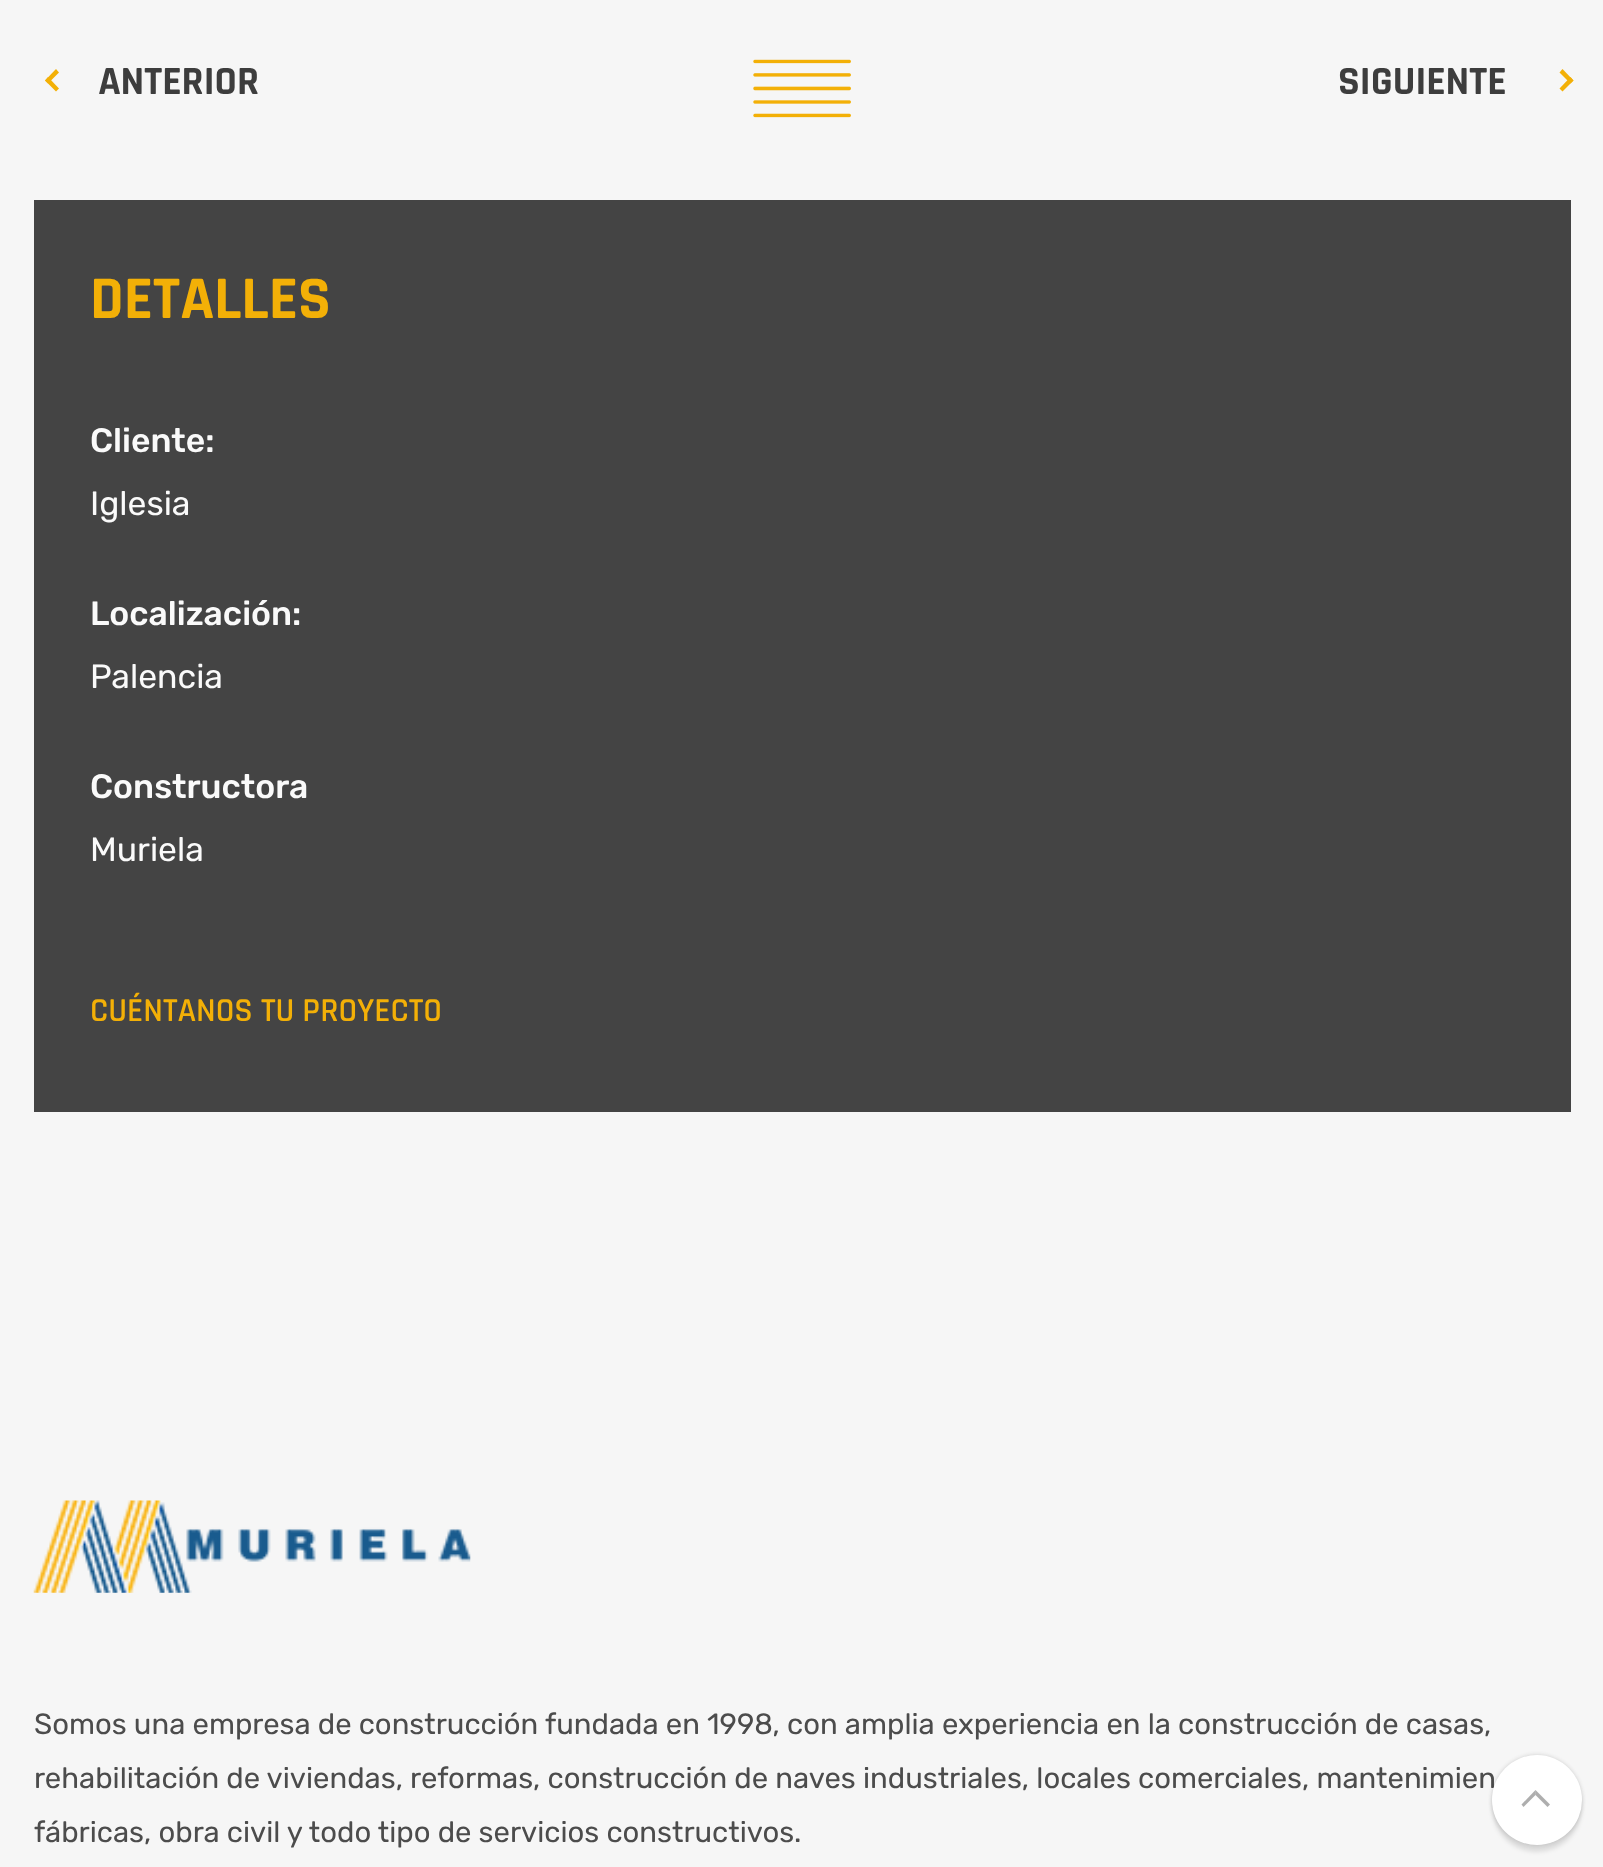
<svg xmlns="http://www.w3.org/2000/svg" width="1603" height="1867">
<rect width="100%" height="100%" fill="#f6f6f6"/>
<path d="M56 91.5l-11-11l3-3.5l11 11.5z" fill="#f3b007"/>
<path d="M48 83.5l-3-3l11-11.5l3 3.5z" fill="#f3b007"/>
<text x="98" y="94" style="font-family:Rajdhani;font-size:40.5px;font-weight:bold;fill:#3d3d3d">ANTERIOR</text>
<image x="753" y="59" width="98" height="59" href="media/1.png"/>
<text x="1338" y="94" style="font-family:Rajdhani;font-size:40.5px;font-weight:bold;fill:#3d3d3d">SIGUIENTE</text>
<path d="M1562.5 69l11 11.5l-3 3l-11-11z" fill="#f3b007"/>
<path d="M1570.5 77l3 3.5l-11 11l-3-3z" fill="#f3b007"/>
<rect x="34" y="200" width="1537" height="912" fill="#444"/>
<text x="90" y="318" style="font-family:Rajdhani;font-size:61px;font-weight:bold;fill:#f3b007">DETALLES</text>
<text x="90" y="452" style="font-family:Rubik;font-size:33.75px;font-weight:500;fill:#fafafa">Cliente:</text>
<text x="90" y="515" style="font-family:Rubik;font-size:33.75px;fill:#fafafa">Iglesia</text>
<text x="90" y="625" style="font-family:Rubik;font-size:33.75px;font-weight:500;fill:#fafafa">Localización:</text>
<text x="90" y="688" style="font-family:Rubik;font-size:33.75px;fill:#fafafa">Palencia</text>
<text x="90" y="798" style="font-family:Rubik;font-size:33.75px;font-weight:500;fill:#fafafa">Constructora</text>
<text x="90" y="861" style="font-family:Rubik;font-size:33.75px;fill:#fafafa">Muriela</text>
<text x="90" y="1021" style="font-family:Rajdhani;font-size:33.75px;font-weight:600;fill:#f3b007">CUÉNTANOS TU PROYECTO</text>
<image x="33" y="1500" width="438" height="93" href="media/2.png"/>
<text x="34" y="1734" style="font-family:Rubik;font-size:29.25px;fill:#4c4c4c">Somos una empresa de construcción fundada en 1998, con amplia experiencia en la construcción de casas,</text>
<text x="34" y="1788" style="font-family:Rubik;font-size:29.25px;fill:#4c4c4c">rehabilitación de viviendas, reformas, construcción de naves industriales, locales comerciales, mantenimien</text>
<text x="34" y="1842" style="font-family:Rubik;font-size:29.25px;fill:#4c4c4c">fábricas, obra civil y todo tipo de servicios constructivos.</text>
<rect x="1492" y="1762" width="90" height="90" rx="45" fill="#0000001a" filter="blur(2px)"/>
<rect x="1492" y="1755" width="90" height="90" rx="45" fill="#0000000f" filter="blur(2px)"/>
<rect x="1492" y="1755" width="90" height="90" rx="45" fill="#0000001a" filter="blur(2px)"/>
<circle cx="1537" cy="1800" r="45" fill="#fff"/>
<path d="M1521.5 1804.5l14-14.5v5l-12 12z" fill="#aeaeae"/>
<path d="M1535.5 1790l14.5 14.5l-2.5 2.5l-12-12z" fill="#5d5d5d80"/>
</svg>
